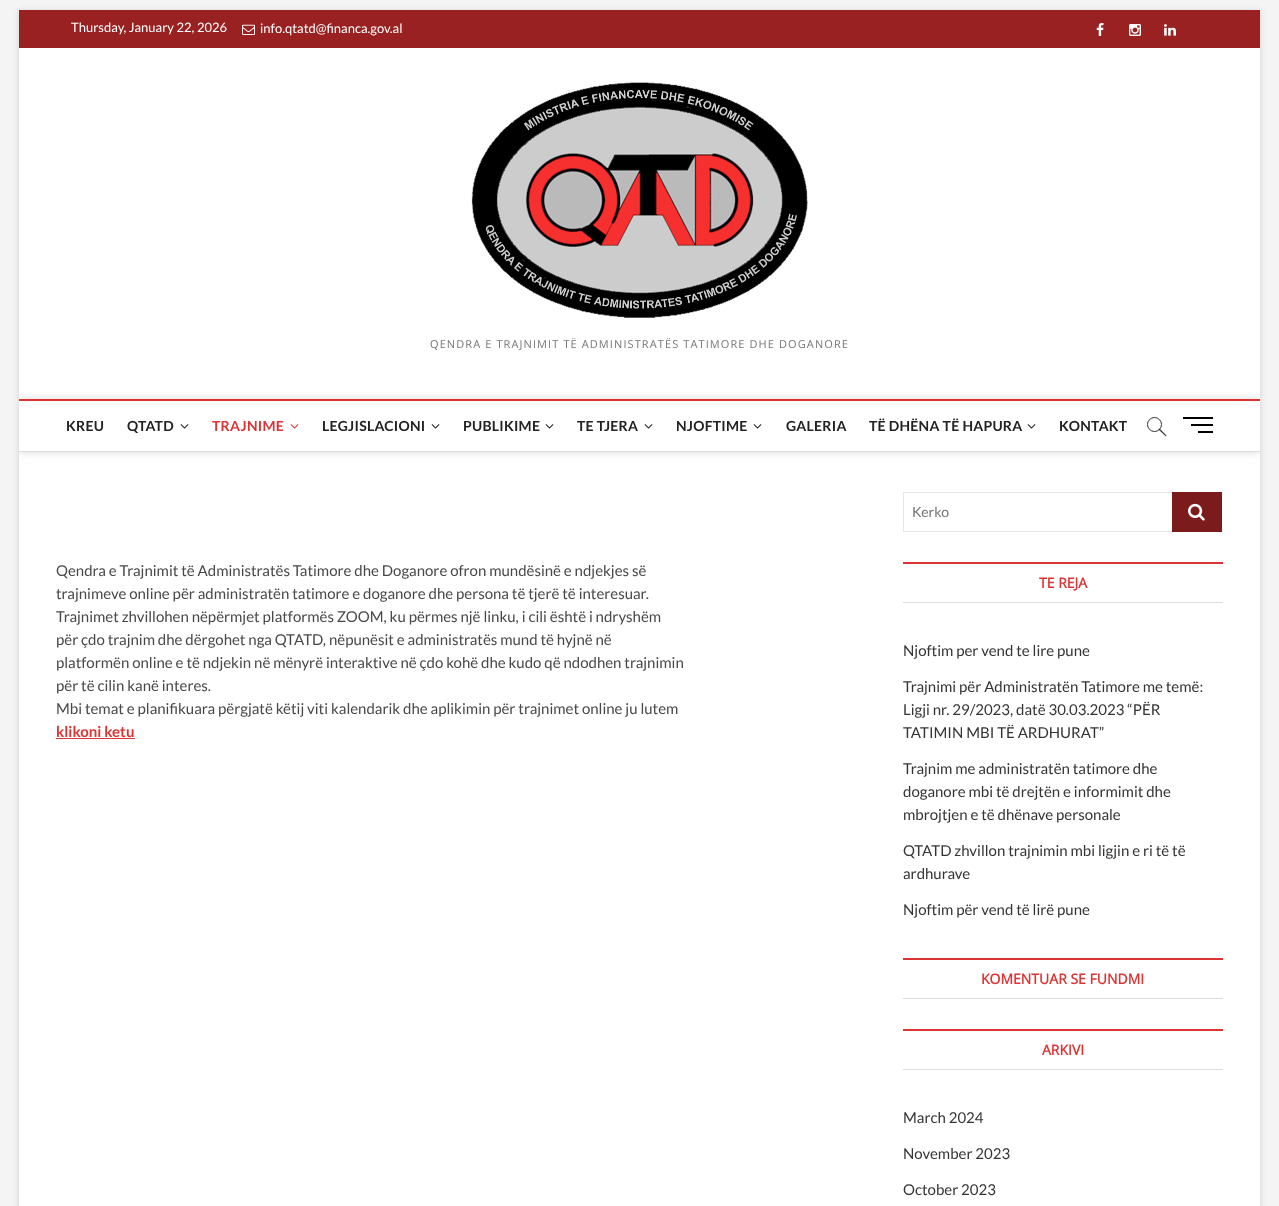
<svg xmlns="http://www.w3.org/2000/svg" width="1279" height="1206">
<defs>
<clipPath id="clip1"><rect x="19" y="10" width="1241" height="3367"/></clipPath>
<clipPath id="clip2"><path d="M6 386h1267v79h-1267zm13 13h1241v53h-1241z" clip-rule="evenodd"/></clipPath>
</defs>
<rect width="100%" height="100%" fill="#f4f4f4"/>
<rect x="19" y="11" width="1241" height="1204" fill="#00000026" filter="blur(3px)"/>
<rect x="19" y="48" width="1241" height="1158" fill="#fff"/>
<rect x="19" y="10" width="1241" height="38" fill="#992121"/>
<text x="71" y="32" style="font-family:Lato;font-size:13px;fill:#fff">Thursday, January 22, 2026</text>
<image x="242" y="24" width="13" height="11" href="media/1.png"/>
<text x="260" y="33" style="font-family:Lato;font-size:13px;fill:#fff">info.qtatd@financa.gov.al</text>
<image x="1096" y="23" width="8" height="13" href="media/2.png"/>
<image x="1129" y="24" width="12" height="12" href="media/3.png"/>
<image x="1164" y="24" width="12" height="12" href="media/4.png"/>
<image x="471" y="82" width="337" height="236" href="media/5.png"/>
<text x="430" y="348" style="font-family:Open Sans;font-size:11px;letter-spacing:1.1px;fill:#747474">QENDRA E TRAJNIMIT TË ADMINISTRATËS TATIMORE DHE DOGANORE</text>
<g clip-path="url(#clip1)">
<g clip-path="url(#clip2)">
<rect x="19" y="399" width="1241" height="53" fill="#00000026" filter="blur(4px)"/>
</g>
</g>
<rect x="19" y="399" width="1241" height="2" fill="#d33"/>
<rect x="19" y="451" width="1241" height="1" fill="#ddd"/>
<text x="66" y="431" style="font-family:Lato;font-size:14px;font-weight:bold;letter-spacing:0.25px;fill:#222">KREU</text>
<text x="127" y="431" style="font-family:Lato;font-size:14px;font-weight:bold;letter-spacing:0.25px;fill:#222">QTATD</text>
<image x="180" y="424" width="9" height="5" href="media/6.png"/>
<text x="212" y="431" style="font-family:Lato;font-size:14px;font-weight:bold;letter-spacing:0.25px;fill:#d33">TRAJNIME</text>
<image x="290" y="424" width="9" height="5" href="media/7.png"/>
<text x="322" y="431" style="font-family:Lato;font-size:14px;font-weight:bold;letter-spacing:0.25px;fill:#222">LEGJISLACIONI</text>
<image x="431" y="424" width="9" height="5" href="media/6.png"/>
<text x="463" y="431" style="font-family:Lato;font-size:14px;font-weight:bold;letter-spacing:0.25px;fill:#222">PUBLIKIME</text>
<image x="545" y="424" width="9" height="5" href="media/6.png"/>
<text x="577" y="431" style="font-family:Lato;font-size:14px;font-weight:bold;letter-spacing:0.25px;fill:#222">TE TJERA</text>
<image x="644" y="424" width="9" height="5" href="media/6.png"/>
<text x="676" y="431" style="font-family:Lato;font-size:14px;font-weight:bold;letter-spacing:0.25px;fill:#222">NJOFTIME</text>
<image x="753" y="424" width="9" height="5" href="media/6.png"/>
<text x="786" y="431" style="font-family:Lato;font-size:14px;font-weight:bold;letter-spacing:0.25px;fill:#222">GALERIA</text>
<text x="869" y="431" style="font-family:Lato;font-size:14px;font-weight:bold;letter-spacing:0.25px;fill:#222">TË DHËNA TË HAPURA</text>
<image x="1027" y="424" width="9" height="5" href="media/6.png"/>
<text x="1059" y="431" style="font-family:Lato;font-size:14px;font-weight:bold;letter-spacing:0.25px;fill:#222">KONTAKT</text>
<circle cx="1154.5" cy="424.5" r="7" fill="none" stroke="#333"/>
<path d="M1158.5 429.5l1-1l7 7l-.5 1z" fill="#333"/>
<rect x="1191" y="424" width="22" height="2" fill="#000"/>
<rect x="1183" y="417" width="30" height="2" fill="#000"/>
<rect x="1198" y="431" width="15" height="2" fill="#000"/>
<text x="56" y="576" style="font-family:Lato;font-size:15px;fill:#484848">Qendra e Trajnimit të Administratës Tatimore dhe Doganore ofron mundësinë e ndjekjes së</text>
<text x="56" y="599" style="font-family:Lato;font-size:15px;fill:#484848">trajnimeve online për administratën tatimore e doganore dhe persona të tjerë të interesuar.</text>
<text x="56" y="622" style="font-family:Lato;font-size:15px;fill:#484848">Trajnimet zhvillohen nëpërmjet platformës ZOOM, ku përmes një linku, i cili është i ndryshëm</text>
<text x="56" y="645" style="font-family:Lato;font-size:15px;fill:#484848">për çdo trajnim dhe dërgohet nga QTATD, nëpunësit e administratës mund të hyjnë në</text>
<text x="56" y="668" style="font-family:Lato;font-size:15px;fill:#484848">platformën online e të ndjekin në mënyrë interaktive në çdo kohë dhe kudo që ndodhen trajnimin</text>
<text x="56" y="691" style="font-family:Lato;font-size:15px;fill:#484848">për të cilin kanë interes.</text>
<text x="56" y="714" style="font-family:Lato;font-size:15px;fill:#484848">Mbi temat e planifikuara përgjatë këtij viti kalendarik dhe aplikimin për trajnimet online ju lutem</text>
<text x="56" y="737" style="font-family:Lato;font-size:15px;font-weight:bold;fill:#d33">klikoni ketu</text>
<rect x="56" y="738" width="79" height="1" fill="#d33"/>
<rect x="903.5" y="492.5" width="269" height="39" fill="none" stroke="#e6e6e6"/>
<text x="912" y="517" style="font-family:Lato;font-size:14px;fill:#747474">Kerko</text>
<rect x="1172" y="492" width="50" height="40" fill="#7c1b1b"/>
<image x="1188" y="503" width="17" height="18" href="media/8.png"/>
<rect x="903" y="562" width="320" height="2" fill="#d33"/>
<rect x="903" y="602" width="320" height="1" fill="#ddd"/>
<text x="1039" y="588" style="font-family:Open Sans;font-size:14px;font-weight:bold;fill:#d33">TE REJA</text>
<text x="903" y="656" style="font-family:Lato;font-size:15px;fill:#343434">Njoftim per vend te lire pune</text>
<text x="903" y="692" style="font-family:Lato;font-size:15px;fill:#343434">Trajnimi për Administratën Tatimore me temë:</text>
<text x="903" y="715" style="font-family:Lato;font-size:15px;fill:#343434">Ligji nr. 29/2023, datë 30.03.2023 “PËR</text>
<text x="903" y="738" style="font-family:Lato;font-size:15px;fill:#343434">TATIMIN MBI TË ARDHURAT”</text>
<text x="903" y="774" style="font-family:Lato;font-size:15px;fill:#343434">Trajnim me administratën tatimore dhe</text>
<text x="903" y="797" style="font-family:Lato;font-size:15px;fill:#343434">doganore mbi të drejtën e informimit dhe</text>
<text x="903" y="820" style="font-family:Lato;font-size:15px;fill:#343434">mbrojtjen e të dhënave personale</text>
<text x="903" y="856" style="font-family:Lato;font-size:15px;fill:#343434">QTATD zhvillon trajnimin mbi ligjin e ri të të</text>
<text x="903" y="879" style="font-family:Lato;font-size:15px;fill:#343434">ardhurave</text>
<text x="903" y="915" style="font-family:Lato;font-size:15px;fill:#343434">Njoftim për vend të lirë pune</text>
<rect x="903" y="958" width="320" height="2" fill="#d33"/>
<rect x="903" y="998" width="320" height="1" fill="#ddd"/>
<text x="981" y="984" style="font-family:Open Sans;font-size:14px;font-weight:bold;fill:#d33">KOMENTUAR SE FUNDMI</text>
<rect x="903" y="1029" width="320" height="2" fill="#d33"/>
<rect x="903" y="1069" width="320" height="1" fill="#ddd"/>
<text x="1042" y="1055" style="font-family:Open Sans;font-size:14px;font-weight:bold;fill:#d33">ARKIVI</text>
<text x="903" y="1123" style="font-family:Lato;font-size:15px;fill:#343434">March 2024</text>
<text x="903" y="1159" style="font-family:Lato;font-size:15px;fill:#343434">November 2023</text>
<text x="903" y="1195" style="font-family:Lato;font-size:15px;fill:#343434">October 2023</text>
</svg>
